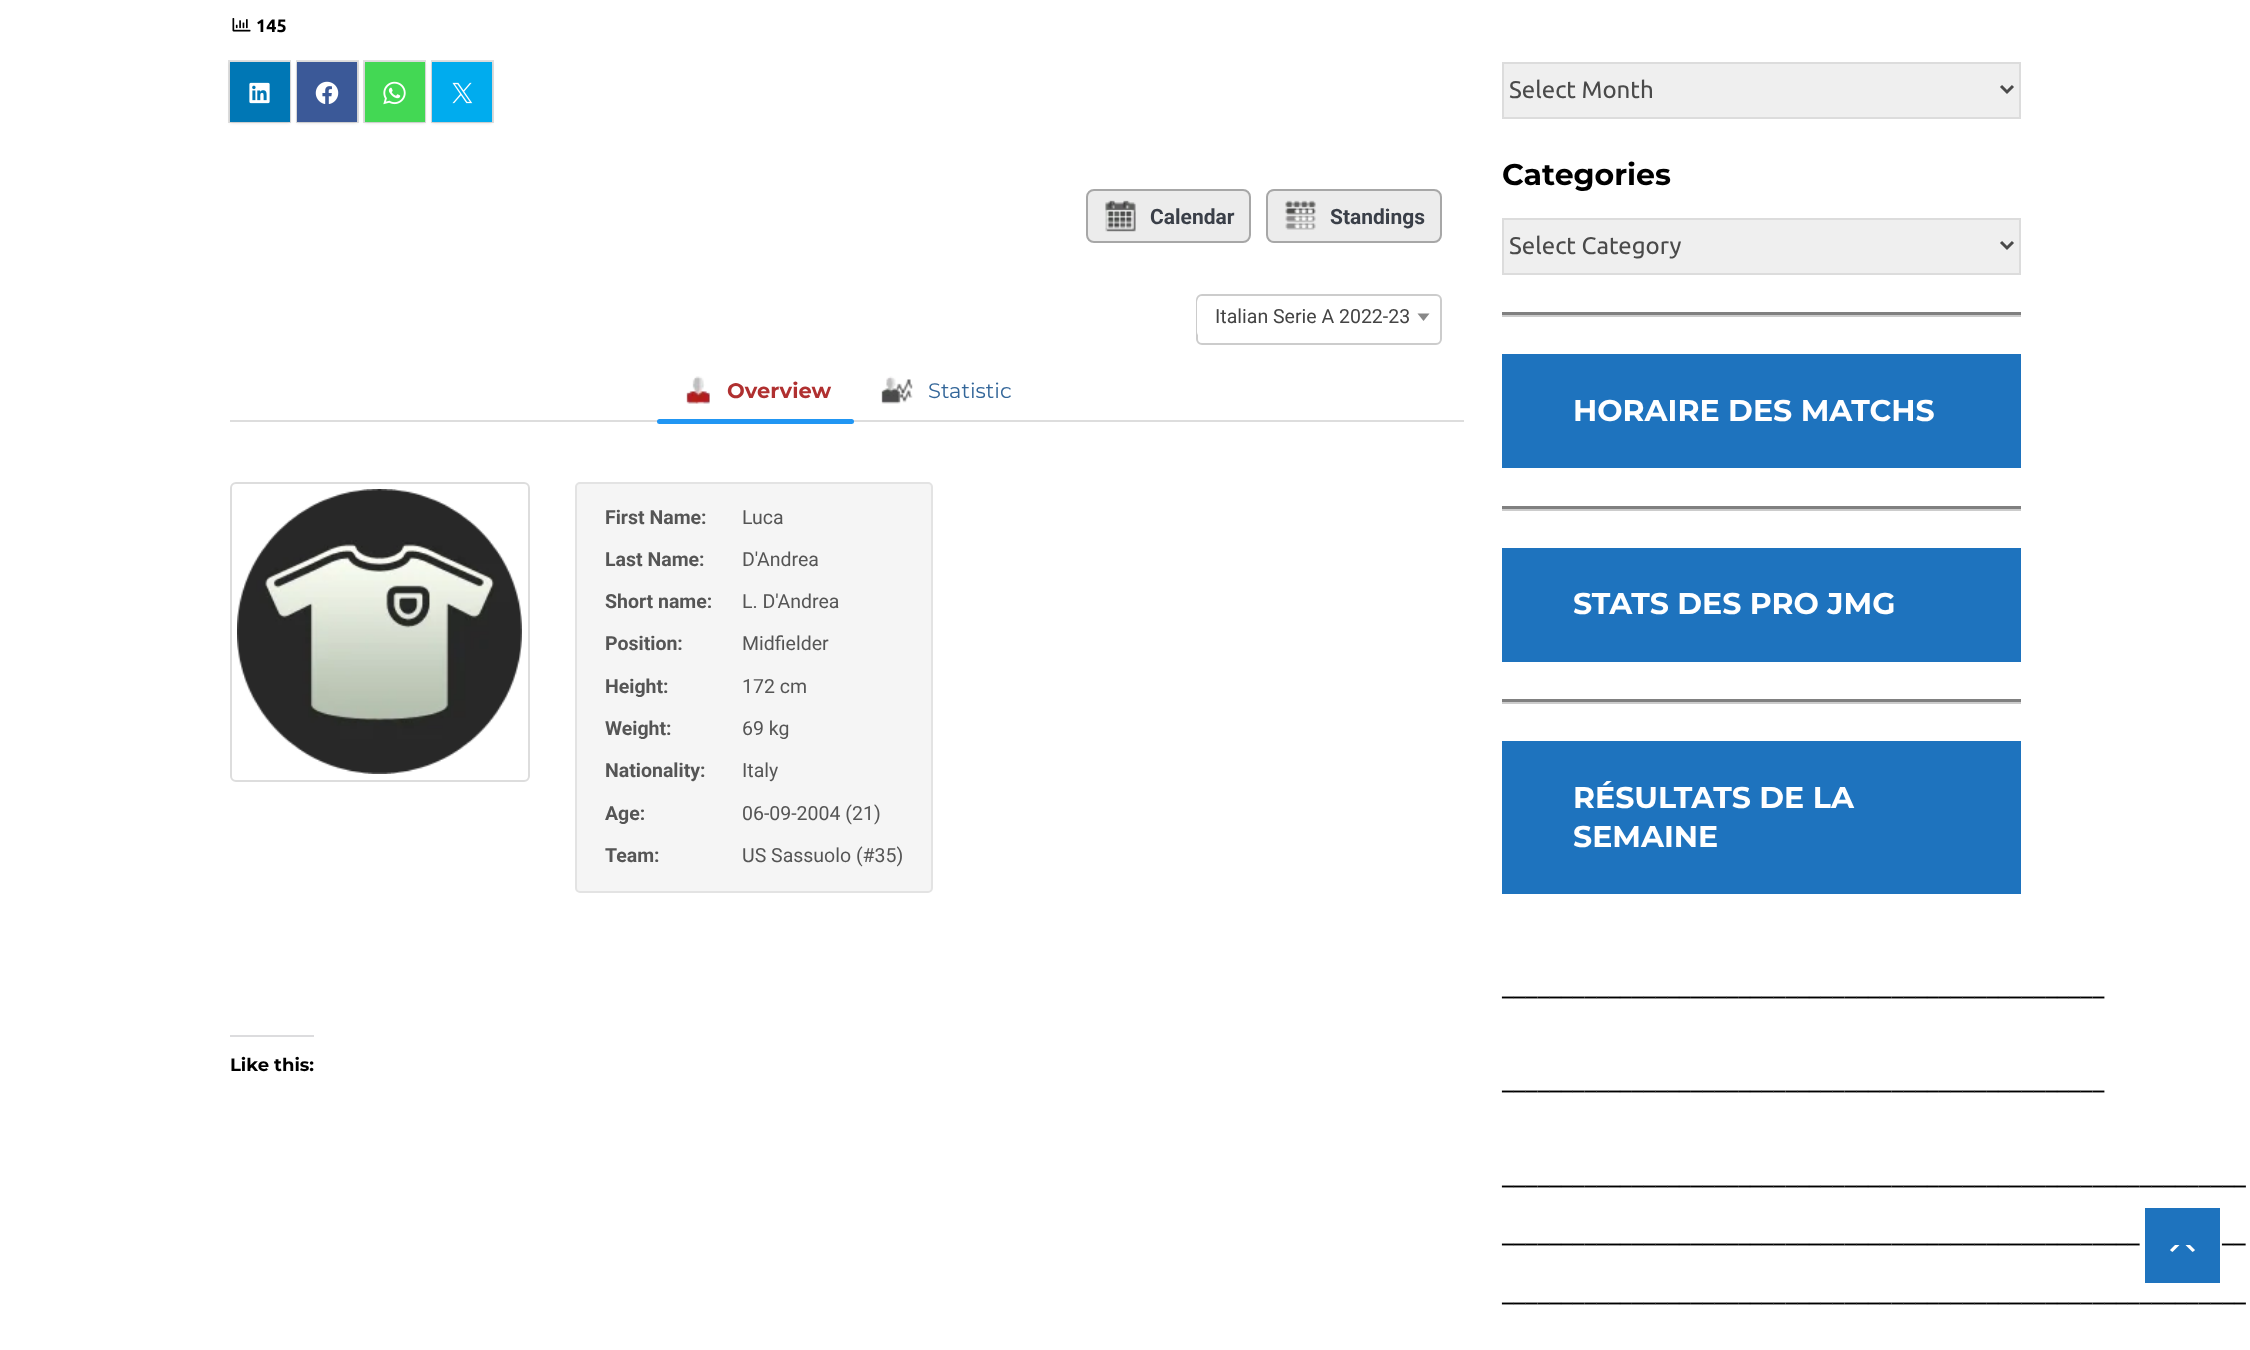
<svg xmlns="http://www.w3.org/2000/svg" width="2250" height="1350">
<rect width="100%" height="100%" fill="#fff"/>
<image x="232" y="18" width="19" height="14" href="media/1.png"/>
<text x="256" y="32" style="font-family:Ubuntu;font-size:18px;font-weight:bold;fill:#000">145</text>
<rect x="229" y="61" width="61" height="61" fill="none" stroke="#e0e0e0" stroke-width="2"/>
<rect x="230" y="63" width="60" height="60" fill="#0000001f" filter="blur(1.5px)"/>
<rect x="230" y="62" width="60" height="60" fill="#0077b5"/>
<image x="249" y="82" width="21" height="22" href="media/2.png"/>
<rect x="297" y="61" width="61" height="61" fill="none" stroke="#e0e0e0" stroke-width="2"/>
<rect x="297" y="63" width="60" height="60" fill="#0000001f" filter="blur(1.5px)"/>
<rect x="297" y="62" width="60" height="60" fill="#3b5998"/>
<image x="315" y="81" width="24" height="23" href="media/3.png"/>
<rect x="364" y="61" width="61" height="61" fill="none" stroke="#e0e0e0" stroke-width="2"/>
<rect x="365" y="63" width="60" height="60" fill="#0000001f" filter="blur(1.5px)"/>
<rect x="365" y="62" width="60" height="60" fill="#43d854"/>
<image x="383" y="81" width="23" height="24" href="media/4.png"/>
<rect x="432" y="61" width="61" height="61" fill="none" stroke="#e0e0e0" stroke-width="2"/>
<rect x="432" y="63" width="60" height="60" fill="#0000001f" filter="blur(1.5px)"/>
<rect x="432" y="62" width="60" height="60" fill="#00acee"/>
<image x="452" y="82" width="21" height="22" href="media/5.png"/>
<rect x="1087" y="190" width="163" height="52" rx="7" fill="#ececec" stroke="#a7a7a7" stroke-width="2"/>
<image x="1105" y="200" width="31" height="32" href="media/6.png"/>
<text x="1150" y="224" style="font-family:Roboto;font-size:21px;font-weight:bold;fill:#3a3f48">Calendar</text>
<rect x="1267" y="190" width="174" height="52" rx="7" fill="#ececec" stroke="#a7a7a7" stroke-width="2"/>
<image x="1285" y="200" width="31" height="30" href="media/7.png"/>
<text x="1330" y="224" style="font-family:Roboto;font-size:21px;font-weight:bold;fill:#3a3f48">Standings</text>
<rect x="1197" y="295" width="244" height="49" rx="5" fill="none" stroke="#ccc" stroke-width="2"/>
<rect x="1197" y="296" width="243" height="42" rx="6" fill="#fff"/>
<text x="1215" y="323" style="font-family:Roboto;font-size:19.5px;fill:#444">Italian Serie A 2022-23</text>
<path d="M1417.5 313.5h12l-6 7.5z" fill="#888"/>
<rect x="230" y="420" width="1234" height="2" fill="#ddd"/>
<image x="686" y="376" width="24" height="28" href="media/8.png"/>
<text x="727" y="398" style="font-family:Montserrat;font-size:21px;font-weight:bold;fill:#b03030">Overview</text>
<rect x="657" y="419" width="197" height="5" rx="2.5" fill="#2196f3"/>
<image x="881" y="376" width="32" height="28" href="media/9.png"/>
<text x="928" y="398" style="font-family:Montserrat;font-size:21px;fill:#369">Statistic</text>
<rect x="231" y="483" width="298" height="298" rx="5" fill="none" stroke="#ddd" stroke-width="2"/>
<image x="237" y="489" width="285" height="285" href="media/10.png"/>
<rect x="576" y="483" width="356" height="409" rx="4" fill="#f5f5f5" stroke="#e3e3e3" stroke-width="2"/>
<text x="605" y="524" style="font-family:Roboto;font-size:19.5px;font-weight:bold;fill:#555">First Name:</text>
<text x="742" y="524" style="font-family:Roboto;font-size:19.5px;fill:#555">Luca</text>
<text x="605" y="566" style="font-family:Roboto;font-size:19.5px;font-weight:bold;fill:#555">Last Name:</text>
<text x="742" y="566" style="font-family:Roboto;font-size:19.5px;fill:#555">D'Andrea</text>
<text x="605" y="608" style="font-family:Roboto;font-size:19.5px;font-weight:bold;fill:#555">Short name:</text>
<text x="742" y="608" style="font-family:Roboto;font-size:19.5px;fill:#555">L. D'Andrea</text>
<text x="605" y="650" style="font-family:Roboto;font-size:19.5px;font-weight:bold;fill:#555">Position:</text>
<text x="742" y="650" style="font-family:Roboto;font-size:19.5px;fill:#555">Midfielder</text>
<text x="605" y="693" style="font-family:Roboto;font-size:19.5px;font-weight:bold;fill:#555">Height:</text>
<text x="742" y="693" style="font-family:Roboto;font-size:19.5px;fill:#555">172 cm</text>
<text x="605" y="735" style="font-family:Roboto;font-size:19.5px;font-weight:bold;fill:#555">Weight:</text>
<text x="742" y="735" style="font-family:Roboto;font-size:19.5px;fill:#555">69 kg</text>
<text x="605" y="777" style="font-family:Roboto;font-size:19.5px;font-weight:bold;fill:#555">Nationality:</text>
<text x="742" y="777" style="font-family:Roboto;font-size:19.5px;fill:#555">Italy</text>
<text x="605" y="820" style="font-family:Roboto;font-size:19.5px;font-weight:bold;fill:#555">Age:</text>
<text x="742" y="820" style="font-family:Roboto;font-size:19.5px;fill:#555">06-09-2004 (21)</text>
<text x="605" y="862" style="font-family:Roboto;font-size:19.5px;font-weight:bold;fill:#555">Team:</text>
<text x="742" y="862" style="font-family:Roboto;font-size:19.5px;fill:#555">US Sassuolo (#35)</text>
<rect x="230" y="1035" width="84" height="2" fill="#dcdcde"/>
<text x="230" y="1071" style="font-family:Montserrat;font-size:18px;font-weight:bold;fill:#000">Like this:</text>
<rect x="1503" y="63" width="517" height="55" fill="#efefef" stroke="#dcdcdc" stroke-width="2"/>
<path d="M2001 86l6 6l6-6" fill="none" stroke="#4a4a4a" stroke-width="3"/>
<text x="1509" y="98" style="font-family:Ubuntu;font-size:24px;fill:#4a4a4a">Select Month</text>
<text x="1502" y="185" style="font-family:Montserrat;font-size:30px;font-weight:bold;fill:#000">Categories</text>
<rect x="1503" y="219" width="517" height="55" fill="#efefef" stroke="#dcdcdc" stroke-width="2"/>
<path d="M2001 242l6 6l6-6" fill="none" stroke="#4a4a4a" stroke-width="3"/>
<text x="1509" y="254" style="font-family:Ubuntu;font-size:24px;fill:#4a4a4a">Select Category</text>
<rect x="1502" y="315" width="519" height="2" fill="#ccc"/>
<rect x="1502" y="312" width="519" height="3" fill="#808080"/>
<rect x="1502" y="354" width="519" height="114" fill="#1e73be"/>
<text x="1573" y="421" style="font-family:Montserrat;font-size:30px;font-weight:bold;fill:#fff">HORAIRE DES MATCHS</text>
<rect x="1502" y="509" width="519" height="2" fill="#ccc"/>
<rect x="1502" y="506" width="519" height="3" fill="#808080"/>
<rect x="1502" y="548" width="519" height="114" fill="#1e73be"/>
<text x="1573" y="614" style="font-family:Montserrat;font-size:30px;font-weight:bold;fill:#fff">STATS DES PRO JMG</text>
<rect x="1502" y="702" width="519" height="2" fill="#ccc"/>
<rect x="1502" y="699" width="519" height="3" fill="#808080"/>
<rect x="1502" y="741" width="519" height="153" fill="#1e73be"/>
<text x="1573" y="808" style="font-family:Montserrat;font-size:30px;font-weight:bold;fill:#fff">RÉSULTATS DE LA</text>
<text x="1573" y="847" style="font-family:Montserrat;font-size:30px;font-weight:bold;fill:#fff">SEMAINE</text>
<text x="1502" y="994" style="font-family:Ubuntu;font-size:24px;fill:#000">___________________________________________________</text>
<text x="1502" y="1088" style="font-family:Ubuntu;font-size:24px;fill:#000">___________________________________________________</text>
<text x="1502" y="1183" style="font-family:Ubuntu;font-size:24px;fill:#000">_______________________________________________________________</text>
<text x="1502" y="1241" style="font-family:Ubuntu;font-size:24px;fill:#000">______________________________________________________</text>
<text x="2222" y="1241" style="font-family:Ubuntu;font-size:24px;fill:#000">__</text>
<text x="1502" y="1300" style="font-family:Ubuntu;font-size:24px;fill:#000">_______________________________________________________________</text>
<rect x="2145" y="1208" width="75" height="75" fill="#1e73be"/>
<path d="M2175 1252.5h15c2 0 4-1 5-2.5l-5-5h-15l-5 5c1 1.5 3 2.5 5 2.5z" fill="#fff"/>
<path d="M2197.5 1257h-30l15-15z" fill="#1e73be"/>
</svg>
